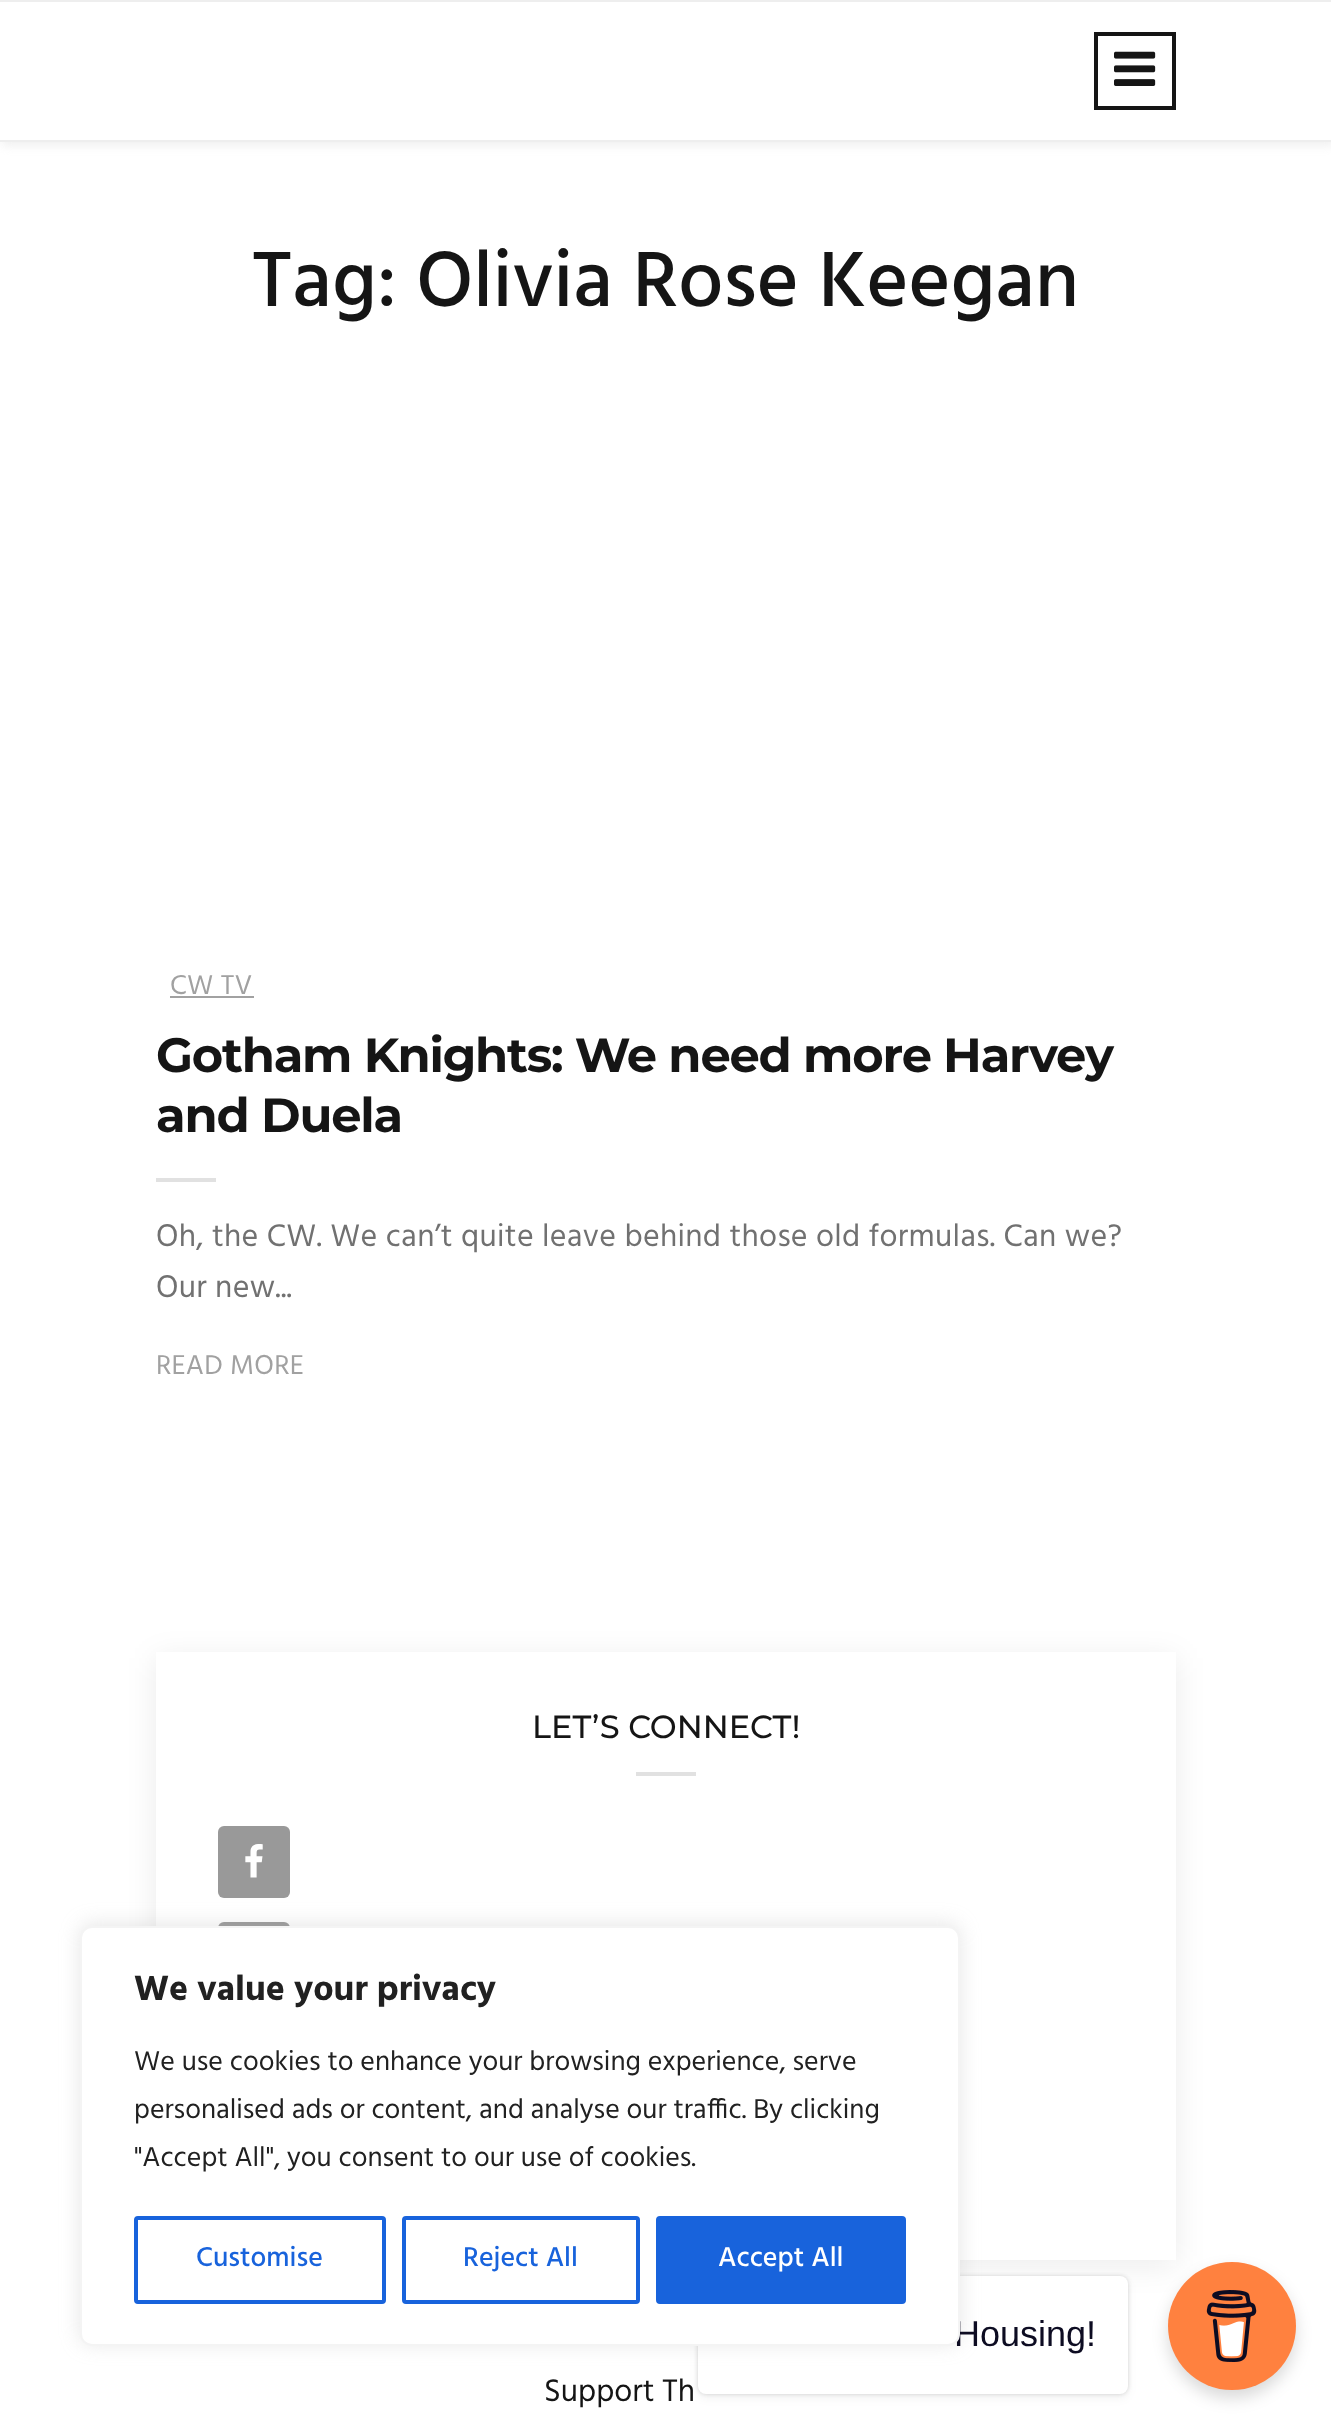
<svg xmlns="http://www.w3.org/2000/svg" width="1331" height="2426">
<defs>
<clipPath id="clip1"><rect x="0" y="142" width="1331" height="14"/></clipPath>
<clipPath id="clip2"><path d="M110 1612h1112v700h-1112zm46 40h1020v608h-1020z" clip-rule="evenodd"/></clipPath>
</defs>
<rect width="100%" height="100%" fill="#fff"/>
<g clip-path="url(#clip1)">
<rect x="2" y="4" width="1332" height="142" fill="#ebebebbf" filter="blur(5px)"/>
</g>
<rect y="140" width="1331" height="2" fill="#eee"/>
<rect width="1331" height="2" fill="#eee"/>
<rect x="1096" y="34" width="78" height="74" fill="none" stroke="#151515" stroke-width="4"/>
<image x="1114" y="51" width="42" height="35" href="media/1.png"/>
<text x="252" y="306" style="font-family:Hind;font-size:80px;font-weight:500;fill:#151515">Tag: Olivia Rose Keegan</text>
<text x="170" y="994" style="font-family:Hind;font-size:28px;letter-spacing:0.25px;fill:#a1a1a1">CW TV</text>
<rect x="170" y="996" width="84" height="2" fill="#a1a1a1"/>
<text x="156" y="1072" style="font-family:Montserrat;font-size:48px;font-weight:bold;letter-spacing:-1.2px;fill:#151515">Gotham Knights: We need more Harvey</text>
<text x="156" y="1132" style="font-family:Montserrat;font-size:48px;font-weight:bold;letter-spacing:-1.2px;fill:#151515">and Duela</text>
<rect x="156" y="1178" width="60" height="4" fill="#e1e1e1"/>
<text x="156" y="1246" style="font-family:Hind;font-size:32px;letter-spacing:0.3px;fill:#717171">Oh, the CW. We can’t quite leave behind those old formulas. Can we?</text>
<text x="156" y="1297" style="font-family:Hind;font-size:32px;letter-spacing:0.3px;fill:#717171">Our new...</text>
<text x="156" y="1374" style="font-family:Hind;font-size:28px;letter-spacing:0.25px;fill:#a1a1a1">READ MORE</text>
<g clip-path="url(#clip2)">
<rect x="156" y="1658" width="1020" height="608" fill="#11111114" filter="blur(15px)"/>
</g>
<text x="532" y="1738" style="font-family:Montserrat;font-size:32px;font-weight:500;fill:#151515">LET’S CONNECT!</text>
<rect x="636" y="1772" width="60" height="4" fill="#e1e1e1"/>
<rect x="218" y="1826" width="72" height="72" rx="6" fill="#999"/>
<image x="245" y="1844" width="18" height="34" href="media/2.png"/>
<rect x="218" y="1922" width="72" height="72" rx="6" fill="#999"/>
<text x="544" y="2401" style="font-family:Hind;font-size:32px;fill:#151515">Support Th</text>
<rect x="698" y="2276" width="430" height="118" rx="8" fill="#00000026" filter="blur(2px)"/>
<rect x="698" y="2280" width="430" height="118" rx="8" fill="#0000000d" filter="blur(5px)"/>
<rect x="698" y="2276" width="430" height="118" rx="8" fill="#fff"/>
<rect x="80" y="1924" width="880" height="420" rx="12" fill="#acabab4d" filter="blur(10px)"/>
<text x="954" y="2346" style="font-family:Liberation Sans;font-size:36px;fill:#0d0c22">Housing!</text>
<rect x="81" y="1927" width="878" height="418" rx="11" fill="#fff" stroke="#f4f4f4" stroke-width="2"/>
<text x="134" y="2000" style="font-family:Hind;font-size:36px;font-weight:bold;fill:#212121">We value your privacy</text>
<text x="134" y="2070" style="font-family:Hind;font-size:28px;fill:#212121">We use cookies to enhance your browsing experience, serve</text>
<text x="134" y="2118" style="font-family:Hind;font-size:28px;fill:#212121">personalised ads or content, and analyse our traffic. By clicking</text>
<text x="134" y="2166" style="font-family:Hind;font-size:28px;fill:#212121">"Accept All", you consent to our use of cookies.</text>
<rect x="136" y="2218" width="248" height="84" rx="2" fill="none" stroke="#1863dc" stroke-width="4"/>
<text x="196" y="2266" style="font-family:Hind;font-size:28px;font-weight:500;fill:#1863dc">Customise</text>
<rect x="404" y="2218" width="234" height="84" rx="2" fill="none" stroke="#1863dc" stroke-width="4"/>
<text x="463" y="2266" style="font-family:Hind;font-size:28px;font-weight:500;fill:#1863dc">Reject All</text>
<rect x="658" y="2218" width="246" height="84" rx="2" fill="#1863dc" stroke="#1863dc" stroke-width="4"/>
<text x="718" y="2266" style="font-family:Hind;font-size:28px;font-weight:500;fill:#fff">Accept All</text>
<rect x="1168" y="2270" width="128" height="128" rx="64" fill="#00000026" filter="blur(8px)"/>
<circle cx="1232" cy="2326" r="64" fill="#ff813f"/>
<image x="1206" y="2290" width="51" height="72" href="media/3.png"/>
</svg>
